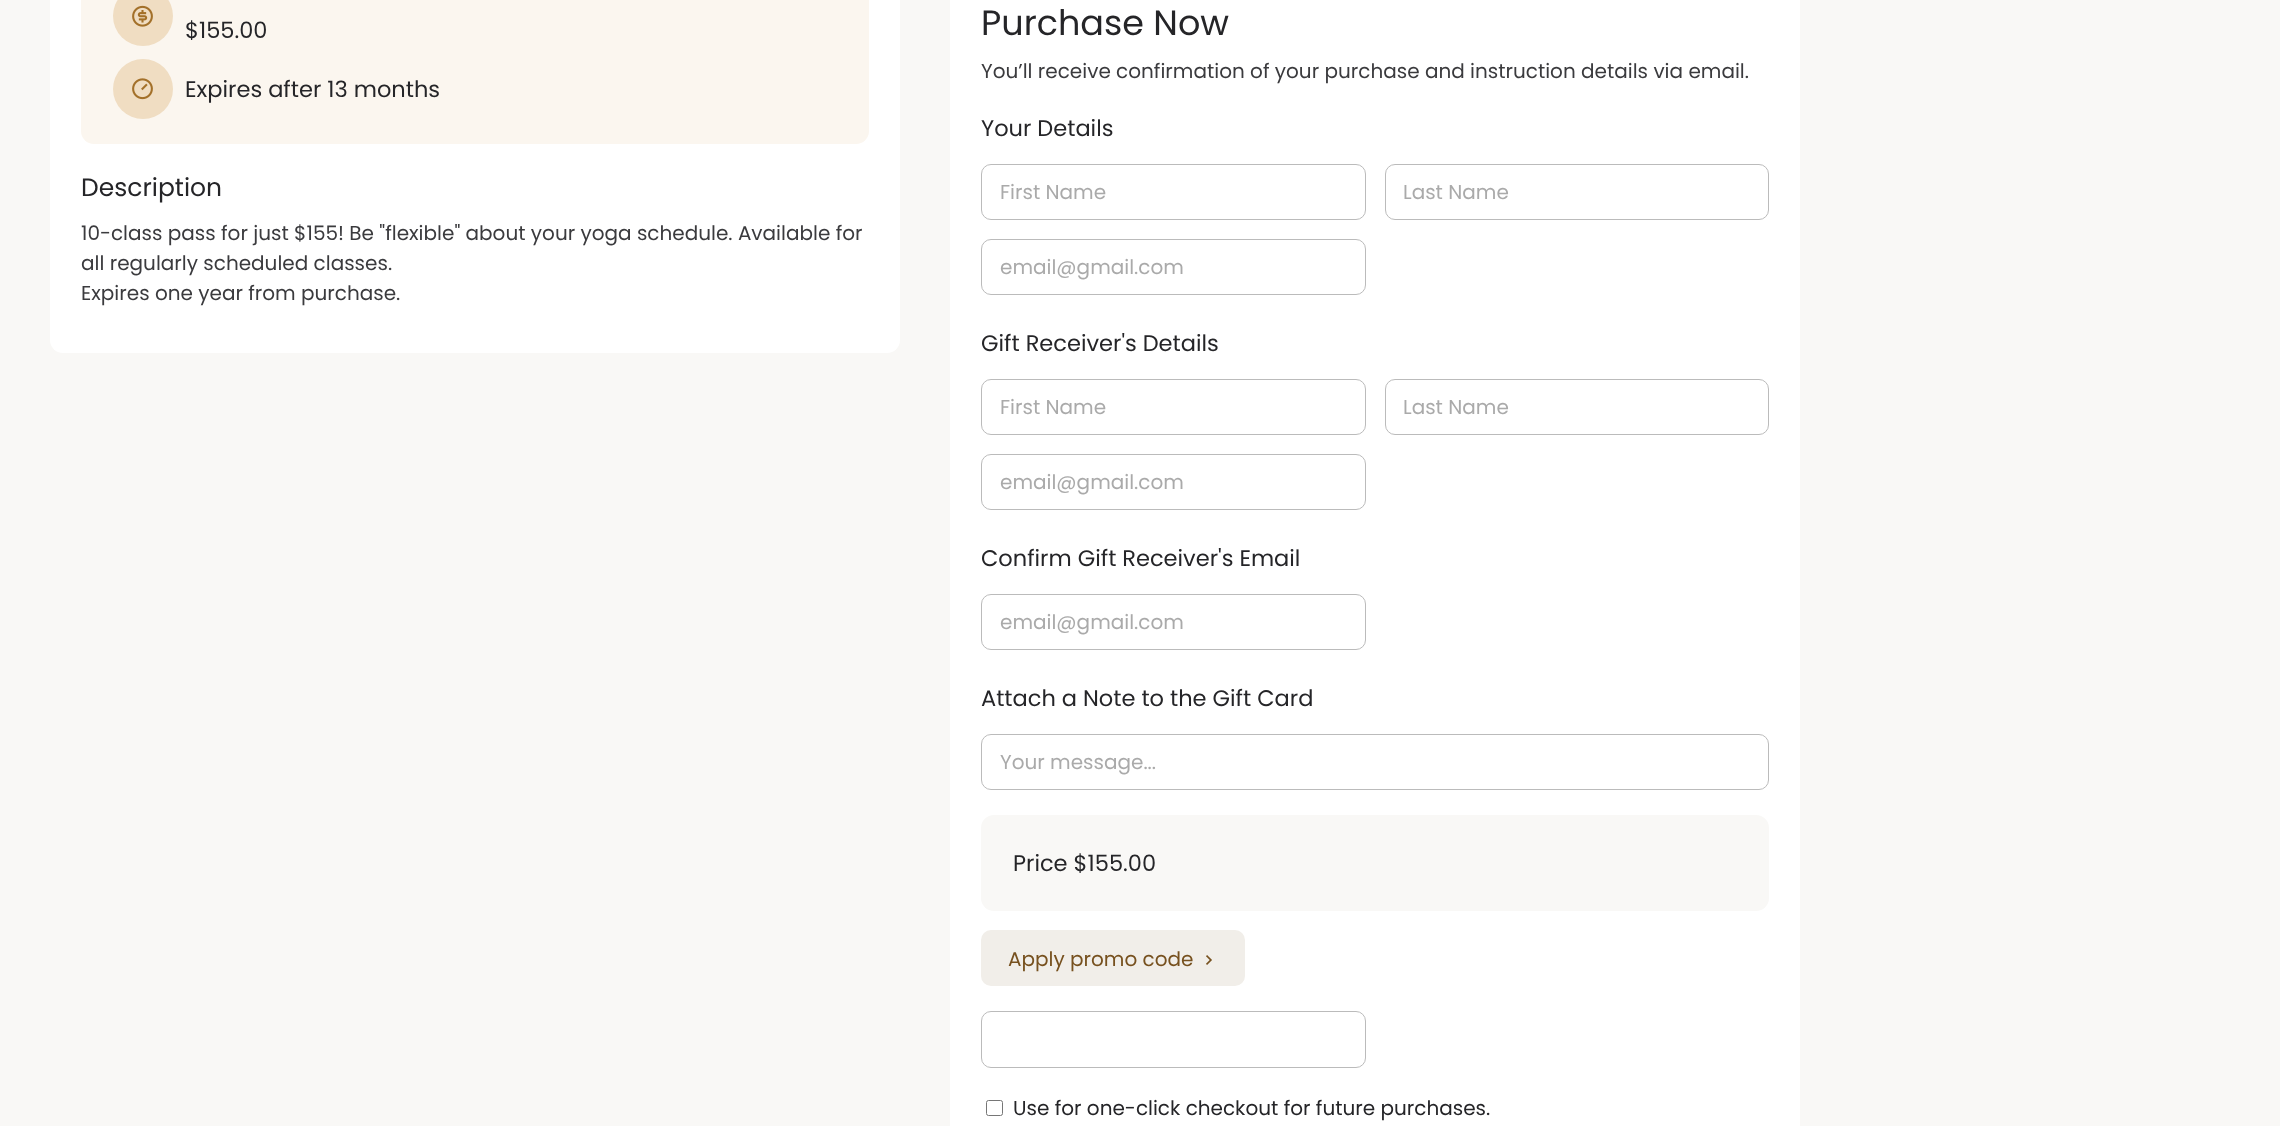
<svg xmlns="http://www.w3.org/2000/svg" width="2280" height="1126">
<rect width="100%" height="100%" fill="#f9f8f6"/>
<rect x="50" y="-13" width="850" height="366" rx="13" fill="#fff"/>
<rect x="81" y="-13" width="788" height="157" rx="13" fill="#fbf6ef"/>
<circle cx="143" cy="16" r="30" fill="#f0ddc2"/>
<image x="132" y="5" width="21" height="22" href="media/1.png"/>
<text x="185" y="38" style="font-family:Poppins;font-size:22.5px;fill:#252528">$155.00</text>
<circle cx="143" cy="89" r="30" fill="#f0ddc2"/>
<image x="132" y="78" width="21" height="22" href="media/2.png"/>
<text x="185" y="97" style="font-family:Poppins;font-size:22.5px;fill:#252528">Expires after 13 months</text>
<text x="81" y="196" style="font-family:Poppins;font-size:25px;fill:#252528">Description</text>
<text x="81" y="240" style="font-family:Poppins;font-size:20px;fill:#3b3b3e">10-class pass for just $155! Be "flexible" about your yoga schedule. Available for</text>
<text x="81" y="270" style="font-family:Poppins;font-size:20px;fill:#3b3b3e">all regularly scheduled classes.</text>
<text x="81" y="300" style="font-family:Poppins;font-size:20px;fill:#3b3b3e">Expires one year from purchase.</text>
<rect x="950" width="850" height="1126" fill="#fff"/>
<text x="981" y="35" style="font-family:Poppins;font-size:35px;fill:#252528">Purchase Now</text>
<text x="981" y="78" style="font-family:Poppins;font-size:20px;fill:#3b3b3e">You’ll receive confirmation of your purchase and instruction details via email.</text>
<text x="981" y="136" style="font-family:Poppins;font-size:22.5px;fill:#252528">Your Details</text>
<rect x="981.5" y="164.5" width="384" height="55" rx="9.5" fill="none" stroke="#bbb"/>
<text x="1000" y="199" style="font-family:Poppins;font-size:20px;fill:#aaa">First Name</text>
<rect x="1385.5" y="164.5" width="383" height="55" rx="9.5" fill="none" stroke="#bbb"/>
<text x="1403" y="199" style="font-family:Poppins;font-size:20px;fill:#aaa">Last Name</text>
<rect x="981.5" y="239.5" width="384" height="55" rx="9.5" fill="none" stroke="#bbb"/>
<text x="1000" y="274" style="font-family:Poppins;font-size:20px;fill:#aaa">email@gmail.com</text>
<text x="981" y="351" style="font-family:Poppins;font-size:22.5px;fill:#252528">Gift Receiver's Details</text>
<rect x="981.5" y="379.5" width="384" height="55" rx="9.5" fill="none" stroke="#bbb"/>
<text x="1000" y="414" style="font-family:Poppins;font-size:20px;fill:#aaa">First Name</text>
<rect x="1385.5" y="379.5" width="383" height="55" rx="9.5" fill="none" stroke="#bbb"/>
<text x="1403" y="414" style="font-family:Poppins;font-size:20px;fill:#aaa">Last Name</text>
<rect x="981.5" y="454.5" width="384" height="55" rx="9.5" fill="none" stroke="#bbb"/>
<text x="1000" y="489" style="font-family:Poppins;font-size:20px;fill:#aaa">email@gmail.com</text>
<text x="981" y="566" style="font-family:Poppins;font-size:22.5px;fill:#252528">Confirm Gift Receiver's Email</text>
<rect x="981.5" y="594.5" width="384" height="55" rx="9.5" fill="none" stroke="#bbb"/>
<text x="1000" y="629" style="font-family:Poppins;font-size:20px;fill:#aaa">email@gmail.com</text>
<text x="981" y="706" style="font-family:Poppins;font-size:22.5px;fill:#252528">Attach a Note to the Gift Card</text>
<rect x="981.5" y="734.5" width="787" height="55" rx="9.5" fill="none" stroke="#bbb"/>
<text x="1000" y="769" style="font-family:Poppins;font-size:20px;fill:#aaa">Your message...</text>
<rect x="981" y="815" width="788" height="96" rx="13" fill="#f9f8f6"/>
<text x="1013" y="871" style="font-family:Poppins;font-size:22.5px;fill:#252528">Price $155.00</text>
<rect x="981" y="930" width="264" height="56" rx="10" fill="#f1eee9"/>
<text x="1008" y="966" style="font-family:Poppins;font-size:20px;fill:#77511f">Apply promo code</text>
<image x="1206" y="955" width="6" height="10" href="media/3.png"/>
<rect x="981.5" y="1011.5" width="384" height="56" rx="9.5" fill="none" stroke="#bbb"/>
<rect x="986.5" y="1100.5" width="16" height="15" rx="2" fill="none" stroke="#767676"/>
<text x="1013" y="1115" style="font-family:Poppins;font-size:20px;fill:#252528">Use for one-click checkout for future purchases.</text>
</svg>
